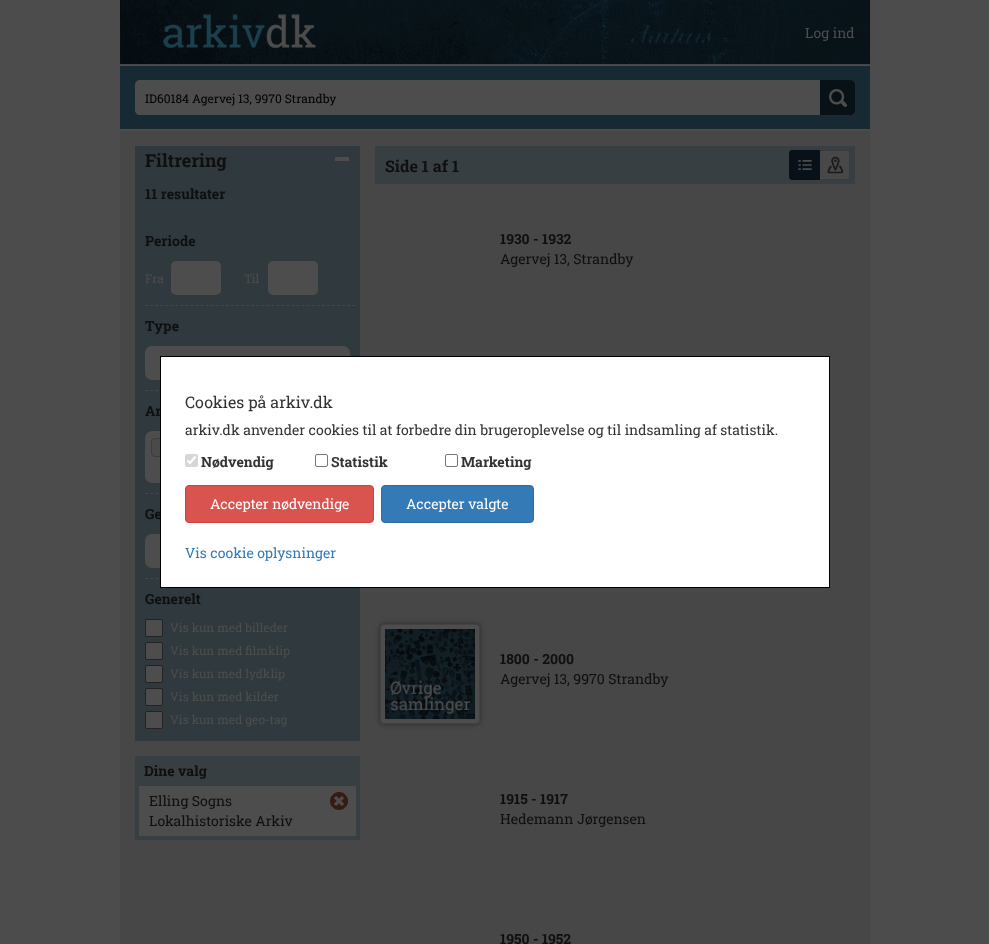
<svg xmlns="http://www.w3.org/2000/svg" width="989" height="944">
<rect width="100%" height="100%" fill="#fff"/>
<image x="0" y="0" width="989" height="944" href="media/1.png"/>
<image x="120" y="0" width="750" height="64" href="media/2.png"/>
<rect x="120" y="64" width="750" height="1" fill="#454545"/>
<image x="163" y="14" width="153" height="34" href="media/3.png"/>
<text x="805" y="38" style="font-family:Roboto Slab;font-size:14px;fill:#4d4d4d">Log ind</text>
<rect x="120" y="66" width="750" height="63" fill="#172932"/>
<path d="M140 80h693v35h-693c-3 0-5-2-5-5v-25c0-3 2-5 5-5z" fill="#4d4d4d"/>
<text x="145" y="103" style="font-family:Roboto Slab;font-size:12px;fill:#000">ID60184 Agervej 13, 9970 Strandby</text>
<image x="820" y="80" width="35" height="35" href="media/4.png"/>
<rect x="120" y="131" width="750" height="813" fill="#474747"/>
<rect x="135" y="146" width="225" height="595" fill="#303a3e"/>
<text x="145" y="167" style="font-family:Roboto Slab;font-size:18px;font-weight:bold;fill:#0f0f0f">Filtrering</text>
<rect x="335" y="157" width="14" height="4" fill="#4d4d4d"/>
<text x="145" y="199" style="font-family:Roboto Slab;font-size:14px;font-weight:bold;fill:#0f0f0f">11 resultater</text>
<text x="145" y="246" style="font-family:Roboto Slab;font-size:14px;font-weight:bold;fill:#0f0f0f">Periode</text>
<path d="M145 305.5h210" fill="none" stroke="#474747" stroke-dasharray="3 2.05"/>
<text x="145" y="283" style="font-family:Roboto Slab;font-size:12px;fill:#4d4d4d">Fra</text>
<rect x="171" y="261" width="50" height="34" rx="5" fill="#4d4d4d"/>
<text x="244" y="283" style="font-family:Roboto Slab;font-size:12px;fill:#4d4d4d">Til</text>
<rect x="268" y="261" width="50" height="34" rx="5" fill="#4d4d4d"/>
<text x="145" y="331" style="font-family:Roboto Slab;font-size:14px;font-weight:bold;fill:#0f0f0f">Type</text>
<path d="M145 390.5h210" fill="none" stroke="#474747" stroke-dasharray="3 2.05"/>
<rect x="145" y="346" width="205" height="34" rx="7" fill="#4d4d4d"/>
<text x="145" y="416" style="font-family:Roboto Slab;font-size:14px;font-weight:bold;fill:#0f0f0f">Ar</text>
<path d="M145 493.5h210" fill="none" stroke="#474747" stroke-dasharray="3 2.05"/>
<rect x="145" y="431" width="205" height="52" rx="7" fill="#4d4d4d"/>
<rect x="151.5" y="438.5" width="194" height="18" rx="3.5" fill="#4a4a4a" stroke="#3d3d3d"/>
<text x="145" y="519" style="font-family:Roboto Slab;font-size:14px;font-weight:bold;fill:#0f0f0f">Ge</text>
<path d="M145 578.5h210" fill="none" stroke="#474747" stroke-dasharray="3 2.05"/>
<rect x="145" y="534" width="205" height="34" rx="7" fill="#4d4d4d"/>
<text x="145" y="604" style="font-family:Roboto Slab;font-size:14px;font-weight:bold;fill:#0f0f0f">Generelt</text>
<rect x="145.5" y="619.5" width="17" height="17" rx="1.5" fill="#4d4d4d" stroke="#232323"/>
<text x="170" y="632" style="font-family:Roboto Slab;font-size:12px;fill:#4d4d4d">Vis kun med billeder</text>
<rect x="145.5" y="642.5" width="17" height="17" rx="1.5" fill="#4d4d4d" stroke="#232323"/>
<text x="170" y="655" style="font-family:Roboto Slab;font-size:12px;fill:#4d4d4d">Vis kun med filmklip</text>
<rect x="145.5" y="665.5" width="17" height="17" rx="1.5" fill="#4d4d4d" stroke="#232323"/>
<text x="170" y="678" style="font-family:Roboto Slab;font-size:12px;fill:#4d4d4d">Vis kun med lydklip</text>
<rect x="145.5" y="688.5" width="17" height="17" rx="1.5" fill="#4d4d4d" stroke="#232323"/>
<text x="170" y="701" style="font-family:Roboto Slab;font-size:12px;fill:#4d4d4d">Vis kun med kilder</text>
<rect x="145.5" y="711.5" width="17" height="17" rx="1.5" fill="#4d4d4d" stroke="#232323"/>
<text x="170" y="724" style="font-family:Roboto Slab;font-size:12px;fill:#4d4d4d">Vis kun med geo-tag</text>
<rect x="139" y="760" width="217" height="22" fill="#383f42"/>
<rect x="135" y="756" width="225" height="4" fill="#383f42"/>
<rect x="356" y="756" width="4" height="28" fill="#383f42"/>
<rect x="135" y="782" width="225" height="4" fill="#383f42"/>
<rect x="135" y="756" width="4" height="28" fill="#383f42"/>
<text x="144" y="776" style="font-family:Roboto Slab;font-size:14px;font-weight:bold;fill:#0f0f0f">Dine valg</text>
<rect x="139" y="786" width="217" height="50" fill="#4d4d4d"/>
<rect x="356" y="784" width="4" height="56" fill="#383f42"/>
<rect x="135" y="836" width="225" height="4" fill="#383f42"/>
<rect x="135" y="784" width="4" height="56" fill="#383f42"/>
<text x="149" y="806" style="font-family:Roboto Slab;font-size:14px;fill:#0f0f0f">Elling Sogns</text>
<text x="149" y="826" style="font-family:Roboto Slab;font-size:14px;fill:#0f0f0f">Lokalhistoriske Arkiv</text>
<image x="330" y="792" width="18" height="18" href="media/5.png"/>
<rect x="375" y="146" width="480" height="38" fill="#383f42"/>
<text x="385" y="172" style="font-family:Roboto Slab;font-size:16px;font-weight:bold;fill:#0f0f0f">Side 1 af 1</text>
<path d="M819.5 150.5h27.5c1.5 0 2.5 1 2.5 2.5v24c0 1.5-1 2.5-2.5 2.5h-27.5z" fill="#484848" stroke="#3b3b3b"/>
<path d="M792 150.5h27.5v29h-27.5c-1.5 0-2.5-1-2.5-2.5v-24c0-1.5 1-2.5 2.5-2.5z" fill="#081117" stroke="#081117"/>
<image x="798" y="160" width="14" height="10" href="media/6.png"/>
<image x="827" y="156" width="17" height="18" href="media/7.png"/>
<text x="500" y="244" style="font-family:Roboto Slab;font-size:14px;font-weight:bold;fill:#0f0f0f">1930 - 1932</text>
<text x="500" y="264" style="font-family:Roboto Slab;font-size:14px;fill:#0f0f0f">Agervej 13, Strandby</text>
<rect x="380" y="624" width="100" height="100" rx="4" fill="#292929" filter="blur(2.5px)"/>
<rect x="380.5" y="624.5" width="99" height="99" rx="3.5" fill="#4d4d4d" stroke="#424242"/>
<image x="385" y="629" width="90" height="90" href="media/8.png"/>
<text x="500" y="664" style="font-family:Roboto Slab;font-size:14px;font-weight:bold;fill:#0f0f0f">1800 - 2000</text>
<text x="500" y="684" style="font-family:Roboto Slab;font-size:14px;fill:#0f0f0f">Agervej 13, 9970 Strandby</text>
<text x="500" y="804" style="font-family:Roboto Slab;font-size:14px;font-weight:bold;fill:#0f0f0f">1915 - 1917</text>
<text x="500" y="824" style="font-family:Roboto Slab;font-size:14px;fill:#0f0f0f">Hedemann Jørgensen</text>
<text x="500" y="944" style="font-family:Roboto Slab;font-size:14px;font-weight:bold;fill:#0f0f0f">1950 - 1952</text>
<rect x="160.5" y="356.5" width="669" height="231" fill="#fff" stroke="#000"/>
<text x="185" y="408" style="font-family:Roboto Slab;font-size:16px;fill:#333">Cookies på arkiv.dk</text>
<text x="185" y="435" style="font-family:Roboto Slab;font-size:14px;fill:#333">arkiv.dk anvender cookies til at forbedre din brugeroplevelse og til indsamling af statistik.</text>
<rect x="185" y="454" width="13" height="13" rx="2" fill="#d6d6d6"/>
<path d="M187.5 460.5l2.5 2.5l5.5-6.5" fill="none" stroke="#fff" stroke-width="2.1"/>
<text x="201" y="467" style="font-family:Roboto Slab;font-size:14px;font-weight:bold;fill:#333">Nødvendig</text>
<rect x="315.5" y="454.5" width="12" height="12" rx="1.5" fill="none" stroke="#767676"/>
<text x="331" y="467" style="font-family:Roboto Slab;font-size:14px;font-weight:bold;fill:#333">Statistik</text>
<rect x="445.5" y="454.5" width="12" height="12" rx="1.5" fill="none" stroke="#767676"/>
<text x="461" y="467" style="font-family:Roboto Slab;font-size:14px;font-weight:bold;fill:#333">Marketing</text>
<rect x="185.5" y="485.5" width="188" height="37" rx="3.5" fill="#d9534f" stroke="#d43f3a"/>
<text x="210" y="509" style="font-family:Roboto Slab;font-size:14px;fill:#fff">Accepter nødvendige</text>
<rect x="381.5" y="485.5" width="152" height="37" rx="3.5" fill="#337ab7" stroke="#2e6da4"/>
<text x="406" y="509" style="font-family:Roboto Slab;font-size:14px;fill:#fff">Accepter valgte</text>
<text x="185" y="558" style="font-family:Roboto Slab;font-size:14px;fill:#337ab7">Vis cookie oplysninger</text>
</svg>
